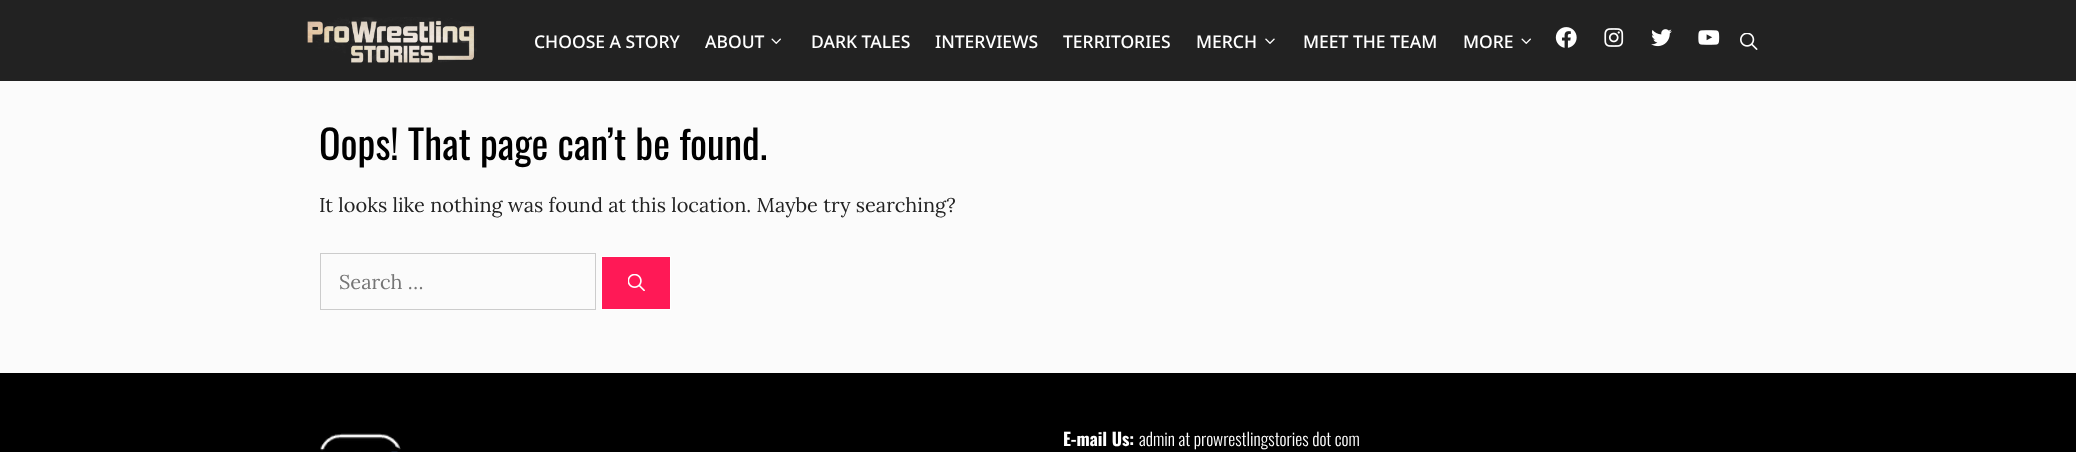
<svg xmlns="http://www.w3.org/2000/svg" width="2076" height="452">
<rect width="100%" height="100%" fill="#fbfbfb"/>
<rect width="2076" height="81" fill="#222"/>
<image x="307" y="17" width="170" height="46" href="media/1.png"/>
<text x="534" y="48" style="font-family:Noto Sans;font-size:17.5px;font-weight:500;fill:#fff">CHOOSE A STORY</text>
<text x="705" y="48" style="font-family:Noto Sans;font-size:17.5px;font-weight:500;fill:#fff">ABOUT</text>
<image x="771" y="38" width="10" height="6" href="media/2.png"/>
<text x="811" y="48" style="font-family:Noto Sans;font-size:17.5px;font-weight:500;fill:#fff">DARK TALES</text>
<text x="935" y="48" style="font-family:Noto Sans;font-size:17.5px;font-weight:500;fill:#fff">INTERVIEWS</text>
<text x="1063" y="48" style="font-family:Noto Sans;font-size:17.5px;font-weight:500;fill:#fff">TERRITORIES</text>
<text x="1196" y="48" style="font-family:Noto Sans;font-size:17.5px;font-weight:500;fill:#fff">MERCH</text>
<image x="1265" y="38" width="10" height="6" href="media/3.png"/>
<text x="1303" y="48" style="font-family:Noto Sans;font-size:17.5px;font-weight:500;fill:#fff">MEET THE TEAM</text>
<text x="1463" y="48" style="font-family:Noto Sans;font-size:17.5px;font-weight:500;fill:#fff">MORE</text>
<image x="1521" y="38" width="10" height="6" href="media/2.png"/>
<image x="1555" y="27" width="22" height="21" href="media/4.png"/>
<image x="1604" y="28" width="20" height="19" href="media/5.png"/>
<image x="1651" y="29" width="21" height="18" href="media/6.png"/>
<image x="1698" y="30" width="22" height="15" href="media/7.png"/>
<image x="1740" y="33" width="18" height="17" href="media/8.png"/>
<text x="319" y="160" style="font-family:Oswald;font-size:40px;fill:#000">Oops! That page can’t be found.</text>
<text x="319" y="212" style="font-family:Lora;font-size:20px;fill:#222">It looks like nothing was found at this location. Maybe try searching?</text>
<rect x="320.5" y="253.5" width="275" height="56" fill="none" stroke="#ccc"/>
<text x="339" y="289" style="font-family:Lora;font-size:20px;fill:#757575">Search …</text>
<rect x="601.5" y="256.5" width="69" height="53" fill="#ff1956" stroke="#fff"/>
<image x="628" y="274" width="17" height="17" href="media/9.png"/>
<rect y="373" width="2076" height="79" fill="#000"/>
<image x="320" y="433" width="81" height="19" href="media/10.png"/>
<text x="1063" y="446" style="font-family:Oswald;font-size:17.5px;font-weight:bold;fill:#fff">E-mail Us:</text>
<text x="1139" y="446" style="font-family:Oswald;font-size:17.5px;font-weight:300;fill:#fff">admin at prowrestlingstories dot com</text>
</svg>
